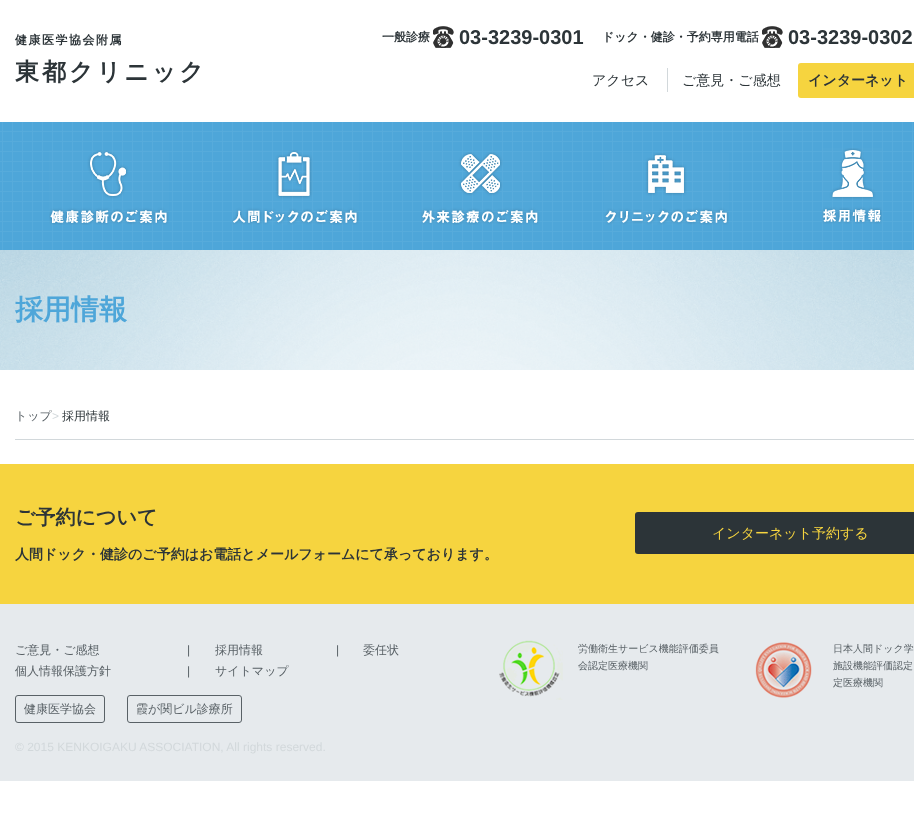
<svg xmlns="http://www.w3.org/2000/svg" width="914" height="820">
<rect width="100%" height="100%" fill="#fff"/>
<text x="15" y="44" style="font-family:WenQuanYi Zen Hei;font-size:12px;font-weight:bold;letter-spacing:1.5px;fill:#2c3438">健康医学協会附属</text>
<text x="15" y="80" style="font-family:WenQuanYi Zen Hei;font-size:24px;font-weight:bold;letter-spacing:3px;fill:#2c3438">東都クリニック</text>
<text x="382" y="41" style="font-family:WenQuanYi Zen Hei;font-size:12px;font-weight:bold;fill:#2c3438">一般診療</text>
<image x="433" y="26" width="21" height="22" href="media/1.png"/>
<text x="459" y="44" style="font-family:Liberation Sans;font-size:20px;font-weight:bold;fill:#2c3438">03-3239-0301</text>
<text x="602" y="41" style="font-family:WenQuanYi Zen Hei;font-size:12px;font-weight:bold;fill:#2c3438">ドック・健診・予約専用電話</text>
<image x="762" y="26" width="21" height="22" href="media/1.png"/>
<text x="788" y="44" style="font-family:Liberation Sans;font-size:20px;font-weight:bold;fill:#2c3438">03-3239-0302</text>
<text x="592" y="85" style="font-family:WenQuanYi Zen Hei;font-size:14px;font-weight:500;fill:#2c3438">アクセス</text>
<rect x="667" y="68" width="1" height="24" fill="#d2d8db"/>
<text x="682" y="85" style="font-family:WenQuanYi Zen Hei;font-size:14px;font-weight:500;fill:#2c3438">ご意見・ご感想</text>
<rect x="798" y="63" width="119" height="35" rx="3" fill="#f6d43f"/>
<text x="808" y="85" style="font-family:WenQuanYi Zen Hei;font-size:14px;font-weight:bold;fill:#2c3438">インターネット</text>
<image x="0" y="122" width="914" height="128" href="media/2.png"/>
<image x="49" y="150" width="120" height="75" href="media/3.png"/>
<image x="232" y="150" width="127" height="75" href="media/4.png"/>
<image x="421" y="152" width="119" height="73" href="media/5.png"/>
<image x="604" y="153" width="125" height="72" href="media/6.png"/>
<image x="822" y="148" width="60" height="76" href="media/7.png"/>
<image x="0" y="250" width="914" height="120" href="media/8.png"/>
<text x="15" y="319" style="font-family:WenQuanYi Zen Hei;font-size:28px;font-weight:bold;fill:#4ea6d9">採用情報</text>
<rect x="15" y="439" width="899" height="1" fill="#d2d8db"/>
<text x="15" y="420" style="font-family:WenQuanYi Zen Hei;font-size:12px;font-weight:500;fill:#596166">トップ</text>
<text x="52" y="420" style="font-family:Liberation Sans;font-size:12px;fill:#d2d8db">&gt;</text>
<text x="62" y="420" style="font-family:WenQuanYi Zen Hei;font-size:12px;font-weight:500;fill:#2c3438">採用情報</text>
<rect y="464" width="914" height="140" fill="#f6d43f"/>
<text x="15" y="524" style="font-family:WenQuanYi Zen Hei;font-size:20px;font-weight:bold;fill:#2c3438">ご予約について</text>
<text x="15" y="559" style="font-family:WenQuanYi Zen Hei;font-size:14px;font-weight:bold;fill:#2c3438">人間ドック・健診のご予約はお電話とメールフォームにて承っております。</text>
<rect x="635" y="512" width="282" height="42" rx="3" fill="#2c3438"/>
<text x="712" y="538" style="font-family:WenQuanYi Zen Hei;font-size:14px;font-weight:500;fill:#f6d43f">インターネット予約する</text>
<rect y="604" width="914" height="177" fill="#e6eaed"/>
<text x="15" y="654" style="font-family:WenQuanYi Zen Hei;font-size:12px;font-weight:500;fill:#596166">ご意見・ご感想</text>
<text x="187" y="654" style="font-family:Liberation Sans;font-size:12px;fill:#596166">|</text>
<text x="215" y="654" style="font-family:WenQuanYi Zen Hei;font-size:12px;font-weight:500;fill:#596166">採用情報</text>
<text x="336" y="654" style="font-family:Liberation Sans;font-size:12px;fill:#596166">|</text>
<text x="363" y="654" style="font-family:WenQuanYi Zen Hei;font-size:12px;font-weight:500;fill:#596166">委任状</text>
<text x="15" y="675" style="font-family:WenQuanYi Zen Hei;font-size:12px;font-weight:500;fill:#596166">個人情報保護方針</text>
<text x="187" y="675" style="font-family:Liberation Sans;font-size:12px;fill:#596166">|</text>
<text x="215" y="675" style="font-family:WenQuanYi Zen Hei;font-size:12px;font-weight:500;fill:#596166">サイトマップ</text>
<rect x="15.5" y="695.5" width="89" height="27" rx="2.5" fill="none" stroke="#596166"/>
<text x="24" y="713" style="font-family:WenQuanYi Zen Hei;font-size:12px;font-weight:500;fill:#596166">健康医学協会</text>
<rect x="127.5" y="695.5" width="114" height="27" rx="2.5" fill="none" stroke="#596166"/>
<text x="136" y="713" style="font-family:WenQuanYi Zen Hei;font-size:12px;font-weight:500;fill:#596166">霞が関ビル診療所</text>
<text x="15" y="751" style="font-family:Liberation Sans;font-size:12px;fill:#d2d8db">© 2015 KENKOIGAKU ASSOCIATION, All rights reserved.</text>
<image x="499" y="640" width="64" height="60" href="media/9.png"/>
<text x="578" y="652" style="font-family:WenQuanYi Zen Hei;font-size:10px;font-weight:500;fill:#596166">労働衛生サービス機能評価委員</text>
<text x="578" y="669" style="font-family:WenQuanYi Zen Hei;font-size:10px;font-weight:500;fill:#596166">会認定医療機関</text>
<image x="755" y="642" width="57" height="56" href="media/10.png"/>
<text x="833" y="652" style="font-family:WenQuanYi Zen Hei;font-size:10px;font-weight:500;fill:#596166">日本人間ドック学</text>
<text x="833" y="669" style="font-family:WenQuanYi Zen Hei;font-size:10px;font-weight:500;fill:#596166">施設機能評価認定</text>
<text x="833" y="686" style="font-family:WenQuanYi Zen Hei;font-size:10px;font-weight:500;fill:#596166">定医療機関</text>
</svg>
